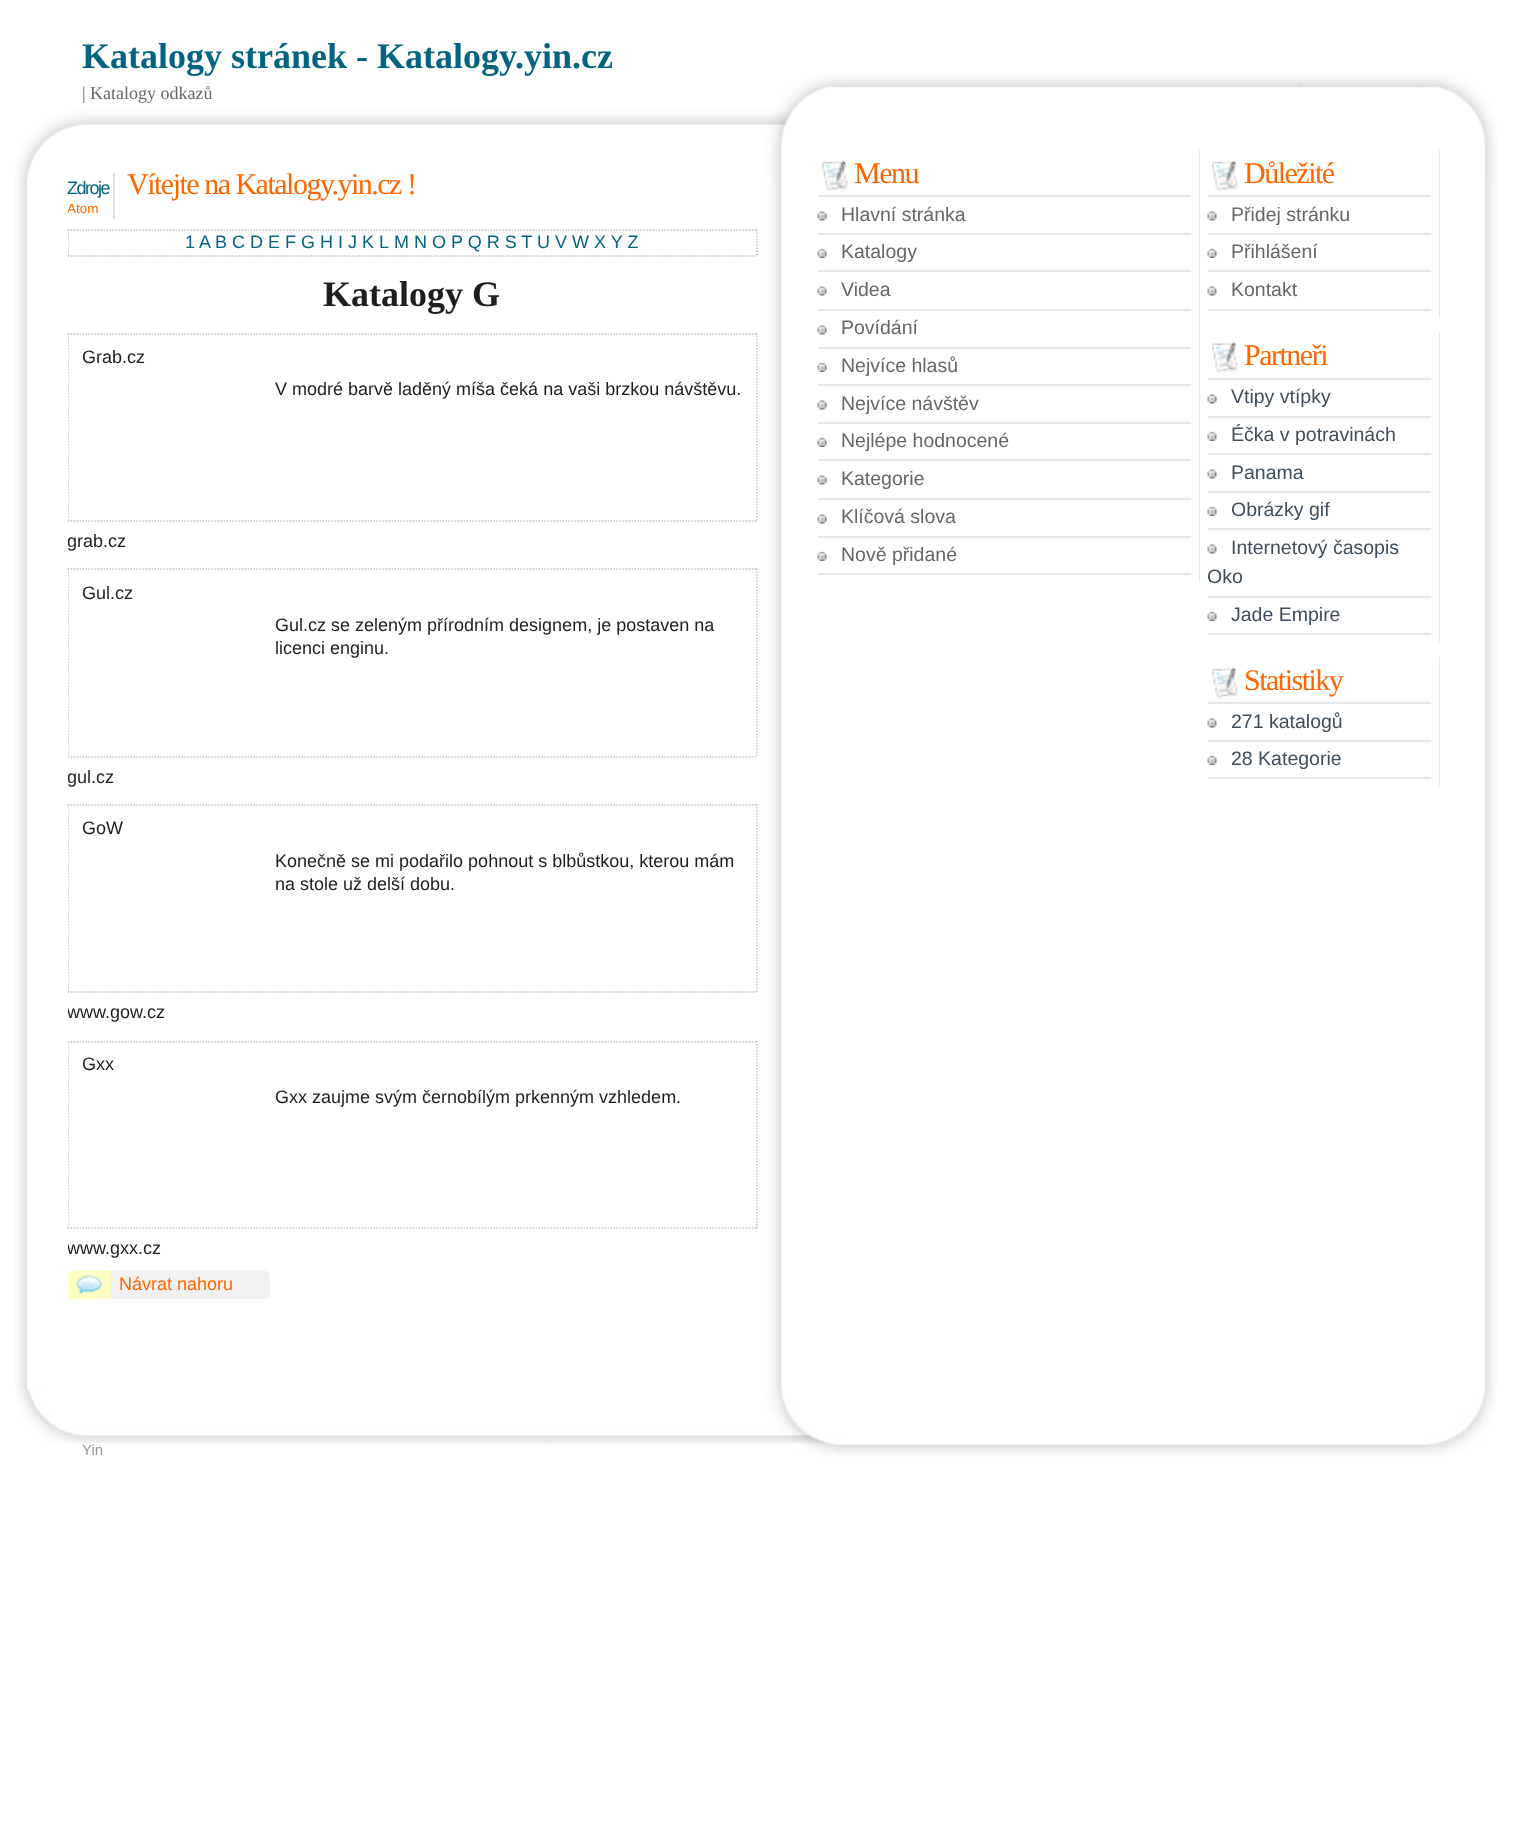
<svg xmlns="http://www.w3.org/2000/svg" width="1513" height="1843">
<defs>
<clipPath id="clip1"><rect x="68" y="165" width="690" height="1209"/></clipPath>
</defs>
<rect width="100%" height="100%" fill="#fff"/>
<image x="15" y="73" width="1482" height="107" href="media/1.png"/>
<text x="82" y="68" style="font-family:Liberation Serif;font-size:36px;font-weight:bold;fill:#046380">Katalogy stránek - Katalogy.yin.cz</text>
<text x="82" y="99" style="font-family:Liberation Serif;font-size:18px;fill:#666">| Katalogy odkazů</text>
<image x="15" y="180" width="1482" height="1209" href="media/2.png"/>
<rect x="113" y="173" width="2" height="46" fill="#e2e2e2"/>
<text x="67" y="194" style="font-family:Liberation Sans;font-size:18px;letter-spacing:-1.5px;fill:#046380">Zdroje</text>
<g clip-path="url(#clip1)">
<text x="67" y="213" style="font-family:Liberation Sans;font-size:13.5px;fill:#f60">Atom</text>
</g>
<text x="127" y="194" style="font-family:Liberation Serif;font-size:30px;letter-spacing:-1.5px;fill:#f60">Vítejte na Katalogy.yin.cz !</text>
<path d="M67.5 230h690" fill="none" stroke="#c2c2c2" stroke-width="1.5" stroke-dasharray="1.5 1.5"/>
<path d="M757 229.5v27" fill="none" stroke="#c2c2c2" stroke-width="1.5" stroke-dasharray="1.5 1.5"/>
<path d="M67.5 256h690" fill="none" stroke="#c2c2c2" stroke-width="1.5" stroke-dasharray="1.5 1.5"/>
<g clip-path="url(#clip1)">
<path d="M68 229.5v27" fill="none" stroke="#c2c2c2" stroke-width="1.5" stroke-dasharray="1.5 1.5"/>
</g>
<text x="185" y="248" style="font-family:Liberation Sans;font-size:18px;fill:#046380">1</text>
<text x="199" y="248" style="font-family:Liberation Sans;font-size:18px;fill:#046380">A</text>
<text x="215" y="248" style="font-family:Liberation Sans;font-size:18px;fill:#046380">B C D E F G H I J K L</text>
<text x="394" y="248" style="font-family:Liberation Sans;font-size:18px;fill:#046380">M N O P Q R S T U V W X Y Z</text>
<text x="323" y="306" style="font-family:Liberation Serif;font-size:36px;font-weight:bold;fill:#1e1e1e">Katalogy G</text>
<path d="M67.5 334h690" fill="none" stroke="#c2c2c2" stroke-width="1.5" stroke-dasharray="1.5 1.5"/>
<path d="M757 333v189" fill="none" stroke="#c2c2c2" stroke-width="1.5" stroke-dasharray="1.5 1.5"/>
<path d="M67.5 521h690" fill="none" stroke="#c2c2c2" stroke-width="1.5" stroke-dasharray="1.5 1.5"/>
<g clip-path="url(#clip1)">
<path d="M68 333v189" fill="none" stroke="#c2c2c2" stroke-width="1.5" stroke-dasharray="1.5 1.5"/>
</g>
<text x="82" y="363" style="font-family:Liberation Sans;font-size:18px;fill:#1e1e1e">Grab.cz</text>
<text x="275" y="395" style="font-family:Liberation Sans;font-size:18px;fill:#1e1e1e">V modré barvě laděný míša čeká na vaši brzkou návštěvu.</text>
<g clip-path="url(#clip1)">
<text x="67" y="547" style="font-family:Liberation Sans;font-size:18px;fill:#1e1e1e">grab.cz</text>
</g>
<path d="M67.5 569h690" fill="none" stroke="#c2c2c2" stroke-width="1.5" stroke-dasharray="1.5 1.5"/>
<path d="M757 568.5v189" fill="none" stroke="#c2c2c2" stroke-width="1.5" stroke-dasharray="1.5 1.5"/>
<path d="M67.5 757h690" fill="none" stroke="#c2c2c2" stroke-width="1.5" stroke-dasharray="1.5 1.5"/>
<g clip-path="url(#clip1)">
<path d="M68 568.5v189" fill="none" stroke="#c2c2c2" stroke-width="1.5" stroke-dasharray="1.5 1.5"/>
</g>
<text x="82" y="599" style="font-family:Liberation Sans;font-size:18px;fill:#1e1e1e">Gul.cz</text>
<text x="275" y="631" style="font-family:Liberation Sans;font-size:18px;fill:#1e1e1e">Gul.cz se zeleným přírodním designem, je postaven na</text>
<text x="275" y="654" style="font-family:Liberation Sans;font-size:18px;fill:#1e1e1e">licenci enginu.</text>
<g clip-path="url(#clip1)">
<text x="67" y="783" style="font-family:Liberation Sans;font-size:18px;fill:#1e1e1e">gul.cz</text>
</g>
<path d="M67.5 805h690" fill="none" stroke="#c2c2c2" stroke-width="1.5" stroke-dasharray="1.5 1.5"/>
<path d="M757 804v189" fill="none" stroke="#c2c2c2" stroke-width="1.5" stroke-dasharray="1.5 1.5"/>
<path d="M67.5 992h690" fill="none" stroke="#c2c2c2" stroke-width="1.5" stroke-dasharray="1.5 1.5"/>
<g clip-path="url(#clip1)">
<path d="M68 804v189" fill="none" stroke="#c2c2c2" stroke-width="1.5" stroke-dasharray="1.5 1.5"/>
</g>
<text x="82" y="834" style="font-family:Liberation Sans;font-size:18px;fill:#1e1e1e">GoW</text>
<text x="275" y="867" style="font-family:Liberation Sans;font-size:18px;fill:#1e1e1e">Konečně se mi podařilo pohnout s blbůstkou, kterou mám</text>
<text x="275" y="890" style="font-family:Liberation Sans;font-size:18px;fill:#1e1e1e">na stole už delší dobu.</text>
<g clip-path="url(#clip1)">
<text x="67" y="1018" style="font-family:Liberation Sans;font-size:18px;fill:#1e1e1e">www.gow.cz</text>
</g>
<path d="M67.5 1042h690" fill="none" stroke="#c2c2c2" stroke-width="1.5" stroke-dasharray="1.5 1.5"/>
<path d="M757 1041v187.5" fill="none" stroke="#c2c2c2" stroke-width="1.5" stroke-dasharray="1.5 1.5"/>
<path d="M67.5 1228h690" fill="none" stroke="#c2c2c2" stroke-width="1.5" stroke-dasharray="1.5 1.5"/>
<g clip-path="url(#clip1)">
<path d="M68 1041v187.5" fill="none" stroke="#c2c2c2" stroke-width="1.5" stroke-dasharray="1.5 1.5"/>
</g>
<text x="82" y="1070" style="font-family:Liberation Sans;font-size:18px;fill:#1e1e1e">Gxx</text>
<text x="275" y="1103" style="font-family:Liberation Sans;font-size:18px;fill:#1e1e1e">Gxx zaujme svým černobílým prkenným vzhledem.</text>
<g clip-path="url(#clip1)">
<text x="67" y="1254" style="font-family:Liberation Sans;font-size:18px;fill:#1e1e1e">www.gxx.cz</text>
</g>
<image x="67" y="1270" width="203" height="29" href="media/3.png"/>
<text x="119" y="1290" style="font-family:Liberation Sans;font-size:18px;fill:#f60">Návrat nahoru</text>
<rect x="1199" y="150" width="1" height="432" fill="#e8e8e8"/>
<image x="822" y="160" width="27" height="31" href="media/4.png"/>
<rect x="818" y="195" width="373" height="2" fill="#e8e8e8"/>
<text x="854" y="183" style="font-family:Liberation Serif;font-size:30px;letter-spacing:-1.5px;fill:#f60">Menu</text>
<rect x="818" y="233" width="373" height="2" fill="#e8e8e8"/>
<image x="817" y="211" width="10" height="10" href="media/5.png"/>
<text x="841" y="221" style="font-family:Liberation Sans;font-size:19.5px;fill:#666">Hlavní stránka</text>
<rect x="818" y="270" width="373" height="2" fill="#e8e8e8"/>
<image x="817" y="248" width="10" height="10" href="media/6.png"/>
<text x="841" y="258" style="font-family:Liberation Sans;font-size:19.5px;fill:#666">Katalogy</text>
<rect x="818" y="309" width="373" height="2" fill="#e8e8e8"/>
<image x="817" y="286" width="10" height="10" href="media/5.png"/>
<text x="841" y="296" style="font-family:Liberation Sans;font-size:19.5px;fill:#666">Videa</text>
<rect x="818" y="347" width="373" height="2" fill="#e8e8e8"/>
<image x="817" y="325" width="10" height="10" href="media/5.png"/>
<text x="841" y="334" style="font-family:Liberation Sans;font-size:19.5px;fill:#666">Povídání</text>
<rect x="818" y="384" width="373" height="2" fill="#e8e8e8"/>
<image x="817" y="362" width="10" height="10" href="media/6.png"/>
<text x="841" y="372" style="font-family:Liberation Sans;font-size:19.5px;fill:#666">Nejvíce hlasů</text>
<rect x="818" y="422" width="373" height="2" fill="#e8e8e8"/>
<image x="817" y="400" width="10" height="10" href="media/5.png"/>
<text x="841" y="410" style="font-family:Liberation Sans;font-size:19.5px;fill:#666">Nejvíce návštěv</text>
<rect x="818" y="459" width="373" height="2" fill="#e8e8e8"/>
<image x="817" y="437" width="10" height="10" href="media/6.png"/>
<text x="841" y="447" style="font-family:Liberation Sans;font-size:19.5px;fill:#666">Nejlépe hodnocené</text>
<rect x="818" y="498" width="373" height="2" fill="#e8e8e8"/>
<image x="817" y="475" width="10" height="10" href="media/5.png"/>
<text x="841" y="485" style="font-family:Liberation Sans;font-size:19.5px;fill:#666">Kategorie</text>
<rect x="818" y="536" width="373" height="2" fill="#e8e8e8"/>
<image x="817" y="514" width="10" height="10" href="media/5.png"/>
<text x="841" y="523" style="font-family:Liberation Sans;font-size:19.5px;fill:#666">Klíčová slova</text>
<rect x="818" y="573" width="373" height="2" fill="#e8e8e8"/>
<image x="817" y="551" width="10" height="10" href="media/6.png"/>
<text x="841" y="561" style="font-family:Liberation Sans;font-size:19.5px;fill:#666">Nově přidané</text>
<rect x="1439" y="150" width="1" height="168" fill="#e8e8e8"/>
<image x="1212" y="160" width="27" height="31" href="media/4.png"/>
<rect x="1208" y="195" width="223" height="2" fill="#e8e8e8"/>
<text x="1244" y="183" style="font-family:Liberation Serif;font-size:30px;letter-spacing:-1.5px;fill:#f60">Důležité</text>
<rect x="1208" y="233" width="223" height="2" fill="#e8e8e8"/>
<image x="1207" y="211" width="10" height="10" href="media/5.png"/>
<text x="1231" y="221" style="font-family:Liberation Sans;font-size:19.5px;fill:#666">Přidej stránku</text>
<rect x="1208" y="270" width="223" height="2" fill="#e8e8e8"/>
<image x="1207" y="248" width="10" height="10" href="media/6.png"/>
<text x="1231" y="258" style="font-family:Liberation Sans;font-size:19.5px;fill:#666">Přihlášení</text>
<rect x="1208" y="309" width="223" height="2" fill="#e8e8e8"/>
<image x="1207" y="286" width="10" height="10" href="media/5.png"/>
<text x="1231" y="296" style="font-family:Liberation Sans;font-size:19.5px;fill:#666">Kontakt</text>
<rect x="1439" y="333" width="1" height="309" fill="#e8e8e8"/>
<image x="1212" y="341" width="27" height="32" href="media/7.png"/>
<rect x="1208" y="378" width="223" height="2" fill="#e8e8e8"/>
<text x="1244" y="365" style="font-family:Liberation Serif;font-size:30px;letter-spacing:-1.5px;fill:#f60">Partneři</text>
<rect x="1208" y="416" width="223" height="2" fill="#e8e8e8"/>
<image x="1207" y="394" width="10" height="10" href="media/5.png"/>
<text x="1231" y="403" style="font-family:Liberation Sans;font-size:19.5px;fill:#3f4e5c">Vtipy vtípky</text>
<rect x="1208" y="453" width="223" height="2" fill="#e8e8e8"/>
<image x="1207" y="431" width="10" height="10" href="media/6.png"/>
<text x="1231" y="441" style="font-family:Liberation Sans;font-size:19.5px;fill:#3f4e5c">Éčka v potravinách</text>
<rect x="1208" y="491" width="223" height="2" fill="#e8e8e8"/>
<image x="1207" y="469" width="10" height="10" href="media/5.png"/>
<text x="1231" y="479" style="font-family:Liberation Sans;font-size:19.5px;fill:#3f4e5c">Panama</text>
<rect x="1208" y="528" width="223" height="2" fill="#e8e8e8"/>
<image x="1207" y="506" width="10" height="10" href="media/6.png"/>
<text x="1231" y="516" style="font-family:Liberation Sans;font-size:19.5px;fill:#3f4e5c">Obrázky gif</text>
<rect x="1208" y="596" width="223" height="2" fill="#e8e8e8"/>
<image x="1207" y="544" width="10" height="10" href="media/5.png"/>
<text x="1231" y="554" style="font-family:Liberation Sans;font-size:19.5px;fill:#3f4e5c">Internetový časopis</text>
<text x="1207" y="583" style="font-family:Liberation Sans;font-size:19.5px;fill:#3f4e5c">Oko</text>
<rect x="1208" y="633" width="223" height="2" fill="#e8e8e8"/>
<image x="1207" y="611" width="10" height="10" href="media/6.png"/>
<text x="1231" y="621" style="font-family:Liberation Sans;font-size:19.5px;fill:#3f4e5c">Jade Empire</text>
<rect x="1439" y="657" width="1" height="129" fill="#e8e8e8"/>
<image x="1212" y="667" width="27" height="31" href="media/4.png"/>
<rect x="1208" y="702" width="223" height="2" fill="#e8e8e8"/>
<text x="1244" y="690" style="font-family:Liberation Serif;font-size:30px;letter-spacing:-1.5px;fill:#f60">Statistiky</text>
<rect x="1208" y="740" width="223" height="2" fill="#e8e8e8"/>
<image x="1207" y="718" width="10" height="10" href="media/5.png"/>
<text x="1231" y="728" style="font-family:Liberation Sans;font-size:19.5px;fill:#3f4e5c">271 katalogů</text>
<rect x="1208" y="777" width="223" height="2" fill="#e8e8e8"/>
<image x="1207" y="755" width="10" height="10" href="media/6.png"/>
<text x="1231" y="765" style="font-family:Liberation Sans;font-size:19.5px;fill:#3f4e5c">28 Kategorie</text>
<image x="16" y="1389" width="1480" height="68" href="media/8.png"/>
<text x="82" y="1455" style="font-family:Liberation Sans;font-size:15px;fill:#999">Yin</text>
</svg>
